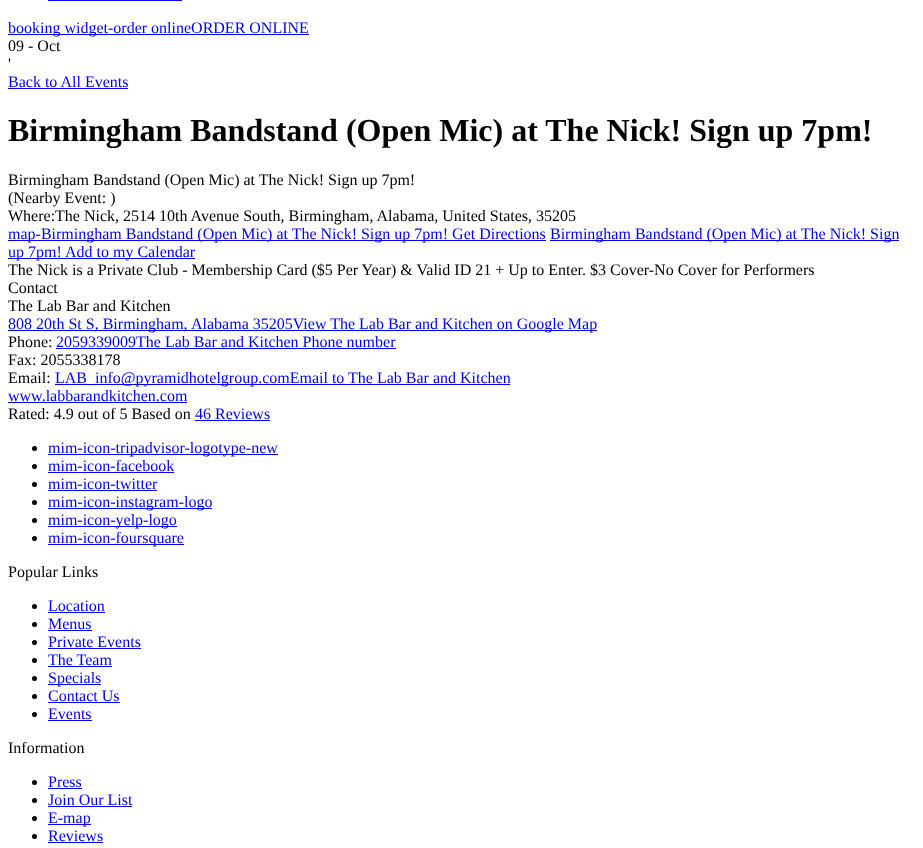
<svg xmlns="http://www.w3.org/2000/svg" width="923" height="848">
<rect width="100%" height="100%" fill="#fff"/>
<rect x="48" width="134" height="1" fill="#00e"/>
<rect x="8" y="34" width="301" height="1" fill="#00e"/>
<text x="8" y="33" style="font-family:Liberation Serif;font-size:16px;fill:#00e">booking widget-order onlineORDER ONLINE</text>
<text x="8" y="51" style="font-family:Liberation Serif;font-size:16px;fill:#000">09 - Oct</text>
<text x="8" y="69" style="font-family:Liberation Serif;font-size:16px;fill:#000">'</text>
<text x="8" y="87" style="font-family:Liberation Serif;font-size:16px;fill:#00e">Back to All Events</text>
<rect x="8" y="88" width="120" height="1" fill="#00e"/>
<text x="8" y="141" style="font-family:Liberation Serif;font-size:32px;font-weight:bold;fill:#000">Birmingham Bandstand (Open Mic) at The Nick! Sign up 7pm!</text>
<text x="8" y="185" style="font-family:Liberation Serif;font-size:16px;fill:#000">Birmingham Bandstand (Open Mic) at The Nick! Sign up 7pm!</text>
<text x="8" y="203" style="font-family:Liberation Serif;font-size:16px;fill:#000">(Nearby Event: )</text>
<text x="8" y="221" style="font-family:Liberation Serif;font-size:16px;fill:#000">Where:The Nick, 2514 10th Avenue South, Birmingham, Alabama, United States, 35205</text>
<rect x="8" y="240" width="538" height="1" fill="#00e"/>
<text x="8" y="239" style="font-family:Liberation Serif;font-size:16px;fill:#00e">map-Birmingham Bandstand (Open Mic) at The Nick! Sign up 7pm! Get Directions</text>
<rect x="550" y="240" width="349" height="1" fill="#00e"/>
<text x="550" y="239" style="font-family:Liberation Serif;font-size:16px;fill:#00e">Birmingham Bandstand (Open Mic) at The Nick! Sign</text>
<rect x="8" y="258" width="187" height="1" fill="#00e"/>
<text x="8" y="257" style="font-family:Liberation Serif;font-size:16px;fill:#00e">up 7pm!</text>
<text x="65" y="257" style="font-family:Liberation Serif;font-size:16px;fill:#00e">Add to my Calendar</text>
<text x="8" y="275" style="font-family:Liberation Serif;font-size:16px;fill:#000">The Nick is a Private Club - Membership Card ($5 Per Year) &amp; Valid ID 21 + Up to Enter. $3 Cover-No Cover for Performers</text>
<text x="8" y="293" style="font-family:Liberation Serif;font-size:16px;fill:#000">Contact</text>
<text x="8" y="311" style="font-family:Liberation Serif;font-size:16px;fill:#000">The Lab Bar and Kitchen</text>
<rect x="8" y="330" width="589" height="1" fill="#00e"/>
<text x="8" y="329" style="font-family:Liberation Serif;font-size:16px;fill:#00e">808 20th St S, Birmingham,</text>
<text x="191" y="329" style="font-family:Liberation Serif;font-size:16px;fill:#00e">Alabama 35205View The Lab Bar and Kitchen on Google Map</text>
<text x="8" y="347" style="font-family:Liberation Serif;font-size:16px;fill:#000">Phone:</text>
<text x="56" y="347" style="font-family:Liberation Serif;font-size:16px;fill:#00e">2059339009The Lab Bar and Kitchen Phone number</text>
<rect x="56" y="348" width="340" height="1" fill="#00e"/>
<text x="8" y="365" style="font-family:Liberation Serif;font-size:16px;fill:#000">Fax: 2055338178</text>
<text x="8" y="383" style="font-family:Liberation Serif;font-size:16px;fill:#000">Email:</text>
<rect x="55" y="384" width="234" height="1" fill="#00e"/>
<text x="55" y="383" style="font-family:Liberation Serif;font-size:16px;fill:#00e">LAB_info@pyramidhotelgroup.comEmail to The Lab Bar and Kitchen</text>
<rect x="289" y="384" width="221" height="1" fill="#00e"/>
<text x="8" y="401" style="font-family:Liberation Serif;font-size:16px;fill:#00e">www.labbarandkitchen.com</text>
<rect x="8" y="402" width="179" height="1" fill="#00e"/>
<text x="8" y="419" style="font-family:Liberation Serif;font-size:16px;fill:#000">Rated: 4.9 out of 5 Based on</text>
<text x="195" y="419" style="font-family:Liberation Serif;font-size:16px;fill:#00e">46 Reviews</text>
<rect x="195" y="420" width="75" height="1" fill="#00e"/>
<circle cx="34.5" cy="448.5" r="2.5" fill="#000"/>
<rect x="48" y="454" width="230" height="1" fill="#00e"/>
<text x="48" y="453" style="font-family:Liberation Serif;font-size:16px;fill:#00e">mim-icon-tripadvisor-logotype-new</text>
<circle cx="34.5" cy="466.5" r="2.5" fill="#000"/>
<text x="48" y="471" style="font-family:Liberation Serif;font-size:16px;fill:#00e">mim-icon-facebook</text>
<rect x="48" y="472" width="126" height="1" fill="#00e"/>
<circle cx="34.5" cy="484.5" r="2.5" fill="#000"/>
<text x="48" y="489" style="font-family:Liberation Serif;font-size:16px;fill:#00e">mim-icon-twitter</text>
<rect x="48" y="490" width="109" height="1" fill="#00e"/>
<circle cx="34.5" cy="502.5" r="2.5" fill="#000"/>
<rect x="48" y="508" width="164" height="1" fill="#00e"/>
<text x="48" y="507" style="font-family:Liberation Serif;font-size:16px;fill:#00e">mim-icon-instagram-logo</text>
<circle cx="34.5" cy="520.5" r="2.5" fill="#000"/>
<rect x="48" y="526" width="129" height="1" fill="#00e"/>
<text x="48" y="525" style="font-family:Liberation Serif;font-size:16px;fill:#00e">mim-icon-yelp-logo</text>
<circle cx="34.5" cy="538.5" r="2.5" fill="#000"/>
<rect x="48" y="544" width="136" height="1" fill="#00e"/>
<text x="48" y="543" style="font-family:Liberation Serif;font-size:16px;fill:#00e">mim-icon-foursquare</text>
<text x="8" y="577" style="font-family:Liberation Serif;font-size:16px;fill:#000">Popular Links</text>
<circle cx="34.5" cy="606.5" r="2.5" fill="#000"/>
<text x="48" y="611" style="font-family:Liberation Serif;font-size:16px;fill:#00e">Location</text>
<rect x="48" y="612" width="57" height="1" fill="#00e"/>
<circle cx="34.5" cy="624.5" r="2.5" fill="#000"/>
<text x="48" y="629" style="font-family:Liberation Serif;font-size:16px;fill:#00e">Menus</text>
<rect x="48" y="630" width="44" height="1" fill="#00e"/>
<circle cx="34.5" cy="642.5" r="2.5" fill="#000"/>
<text x="48" y="647" style="font-family:Liberation Serif;font-size:16px;fill:#00e">Private Events</text>
<rect x="48" y="648" width="93" height="1" fill="#00e"/>
<circle cx="34.5" cy="660.5" r="2.5" fill="#000"/>
<text x="48" y="665" style="font-family:Liberation Serif;font-size:16px;fill:#00e">The Team</text>
<rect x="48" y="666" width="64" height="1" fill="#00e"/>
<circle cx="34.5" cy="678.5" r="2.5" fill="#000"/>
<rect x="48" y="684" width="53" height="1" fill="#00e"/>
<text x="48" y="683" style="font-family:Liberation Serif;font-size:16px;fill:#00e">Specials</text>
<circle cx="34.5" cy="696.5" r="2.5" fill="#000"/>
<text x="48" y="701" style="font-family:Liberation Serif;font-size:16px;fill:#00e">Contact Us</text>
<rect x="48" y="702" width="72" height="1" fill="#00e"/>
<circle cx="34.5" cy="714.5" r="2.5" fill="#000"/>
<text x="48" y="719" style="font-family:Liberation Serif;font-size:16px;fill:#00e">Events</text>
<rect x="48" y="720" width="44" height="1" fill="#00e"/>
<text x="8" y="753" style="font-family:Liberation Serif;font-size:16px;fill:#000">Information</text>
<circle cx="34.5" cy="782.5" r="2.5" fill="#000"/>
<text x="48" y="787" style="font-family:Liberation Serif;font-size:16px;fill:#00e">Press</text>
<rect x="48" y="788" width="34" height="1" fill="#00e"/>
<circle cx="34.5" cy="800.5" r="2.5" fill="#000"/>
<text x="48" y="805" style="font-family:Liberation Serif;font-size:16px;fill:#00e">Join Our List</text>
<rect x="48" y="806" width="84" height="1" fill="#00e"/>
<circle cx="34.5" cy="818.5" r="2.5" fill="#000"/>
<rect x="48" y="824" width="43" height="1" fill="#00e"/>
<text x="48" y="823" style="font-family:Liberation Serif;font-size:16px;fill:#00e">E-map</text>
<circle cx="34.5" cy="836.5" r="2.5" fill="#000"/>
<text x="48" y="841" style="font-family:Liberation Serif;font-size:16px;fill:#00e">Reviews</text>
<rect x="48" y="842" width="55" height="1" fill="#00e"/>
</svg>
